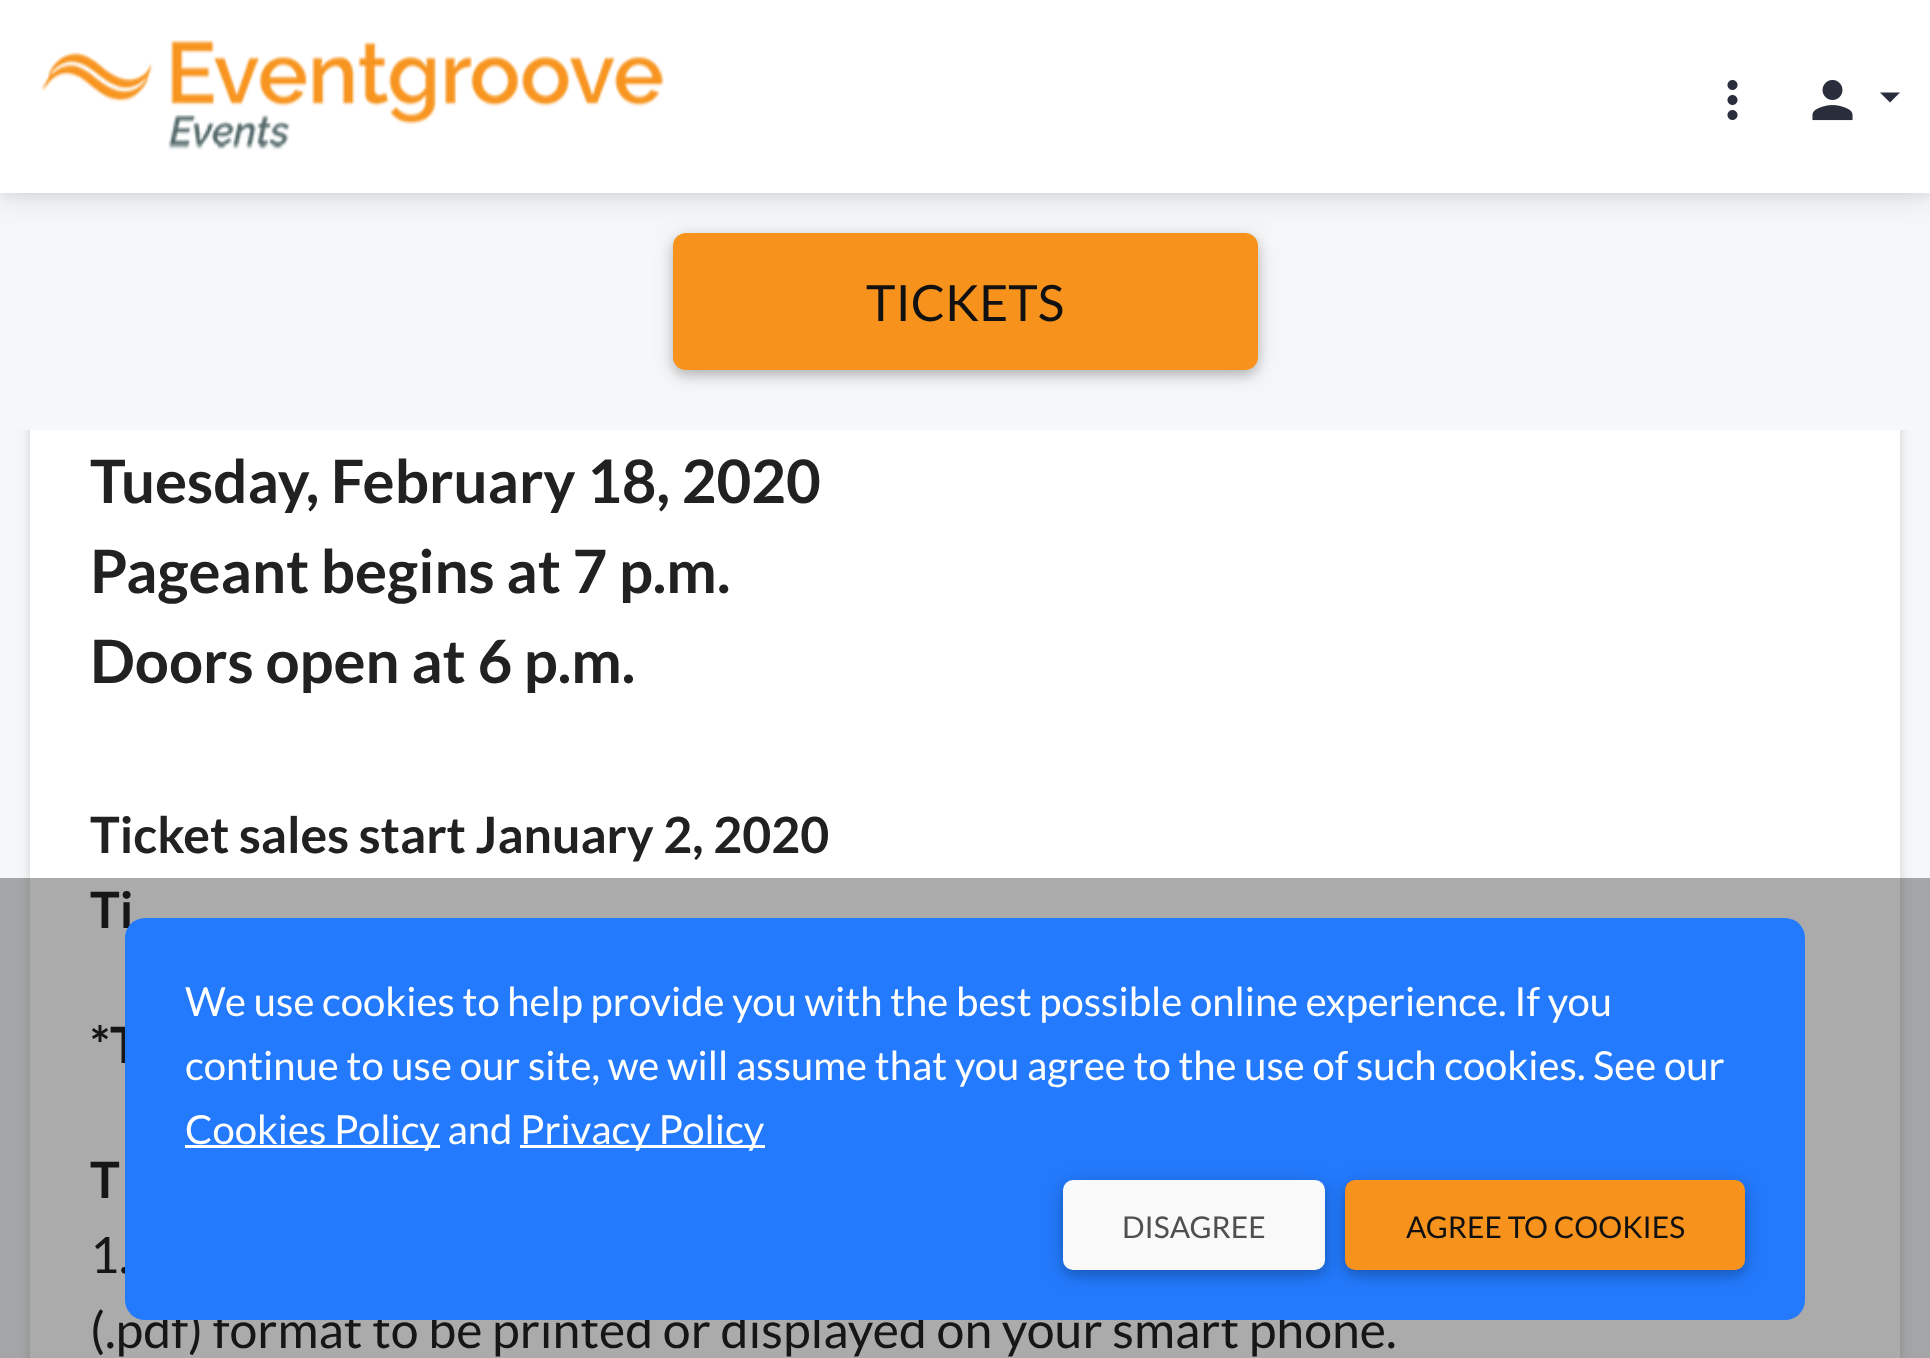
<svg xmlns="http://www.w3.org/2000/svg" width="1930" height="1358">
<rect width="100%" height="100%" fill="#f5f7f8"/>
<rect x="30" y="-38" width="1870" height="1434" rx="20" fill="#00000026" filter="blur(6px)"/>
<rect x="20" y="183" width="1890" height="237" fill="none" stroke="#f5f7f8" stroke-width="20"/>
<rect x="30" y="193" width="1870" height="217" fill="#f5f7f8"/>
<rect y="5" width="1930" height="193" fill="#0000000d" filter="blur(5px)"/>
<rect x="673" y="238" width="585" height="137" rx="13" fill="#0000001a" filter="blur(12.5px)"/>
<rect x="673" y="238" width="585" height="137" rx="13" fill="#00000033" filter="blur(6px)"/>
<rect x="673" y="233" width="585" height="137" rx="13" fill="#f7931d"/>
<rect y="10" width="1930" height="193" fill="#00000012" filter="blur(15px)"/>
<rect width="1930" height="193" fill="#fff"/>
<image x="41" y="40" width="623" height="110" href="media/1.png"/>
<image x="1727" y="80" width="11" height="40" href="media/2.png"/>
<image x="1812" y="80" width="41" height="41" href="media/3.png"/>
<path d="M1880 92.5h20l-10 10z" fill="#2a2e3c"/>
<text x="866" y="321" style="font-family:Lato;font-size:50px;fill:#111">TICKETS</text>
<rect x="30" y="430" width="1870" height="928" fill="#fff"/>
<text x="90" y="503" style="font-family:Lato;font-size:60px;font-weight:bold;fill:#212121">Tuesday, February 18, 2020</text>
<text x="90" y="593" style="font-family:Lato;font-size:60px;font-weight:bold;fill:#212121">Pageant begins at 7 p.m.</text>
<text x="90" y="683" style="font-family:Lato;font-size:60px;font-weight:bold;fill:#212121">Doors open at 6 p.m.</text>
<text x="90" y="853" style="font-family:Lato;font-size:50px;font-weight:bold;fill:#212121">Ticket sales start January 2, 2020</text>
<text x="90" y="928" style="font-family:Lato;font-size:50px;font-weight:bold;fill:#212121">Ti</text>
<text x="90" y="1063" style="font-family:Lato;font-size:50px;font-weight:bold;fill:#212121">*T</text>
<text x="90" y="1198" style="font-family:Lato;font-size:50px;font-weight:bold;fill:#212121">T</text>
<text x="90" y="1273" style="font-family:Lato;font-size:50px;fill:#212121">1.</text>
<text x="90" y="1348" style="font-family:Lato;font-size:50px;fill:#212121">(.pdf) format to be printed or displayed on your smart phone.</text>
<rect y="878" width="1930" height="480" fill="#00000054"/>
<rect x="125" y="918" width="1680" height="402" rx="20" fill="#237afc"/>
<text x="185" y="1016" style="font-family:Lato;font-size:40px;fill:#fff">We use cookies to help provide you with the best possible online experience. If you</text>
<text x="185" y="1080" style="font-family:Lato;font-size:40px;fill:#fff">continue to use our site, we will assume that you agree to the use of such cookies. See our</text>
<rect x="185" y="1145" width="255" height="3" fill="#fff"/>
<text x="185" y="1144" style="font-family:Lato;font-size:40px;fill:#fff">Cookies Policy and</text>
<rect x="520" y="1145" width="245" height="3" fill="#fff"/>
<text x="520" y="1144" style="font-family:Lato;font-size:40px;fill:#fff">Privacy Policy</text>
<rect x="1345" y="1185" width="400" height="90" rx="10" fill="#0000001a" filter="blur(12.5px)"/>
<rect x="1345" y="1185" width="400" height="90" rx="10" fill="#00000033" filter="blur(6px)"/>
<rect x="1345" y="1180" width="400" height="90" rx="10" fill="#f7931d"/>
<rect x="1063" y="1185" width="262" height="90" rx="10" fill="#0000001a" filter="blur(12.5px)"/>
<rect x="1063" y="1185" width="262" height="90" rx="10" fill="#00000033" filter="blur(6px)"/>
<rect x="1063" y="1180" width="262" height="90" rx="10" fill="#f9f9f9"/>
<text x="1122" y="1238" style="font-family:Lato;font-size:30px;fill:#4f4f4f">DISAGREE</text>
<text x="1406" y="1238" style="font-family:Lato;font-size:30px;fill:#111">AGREE TO COOKIES</text>
</svg>
